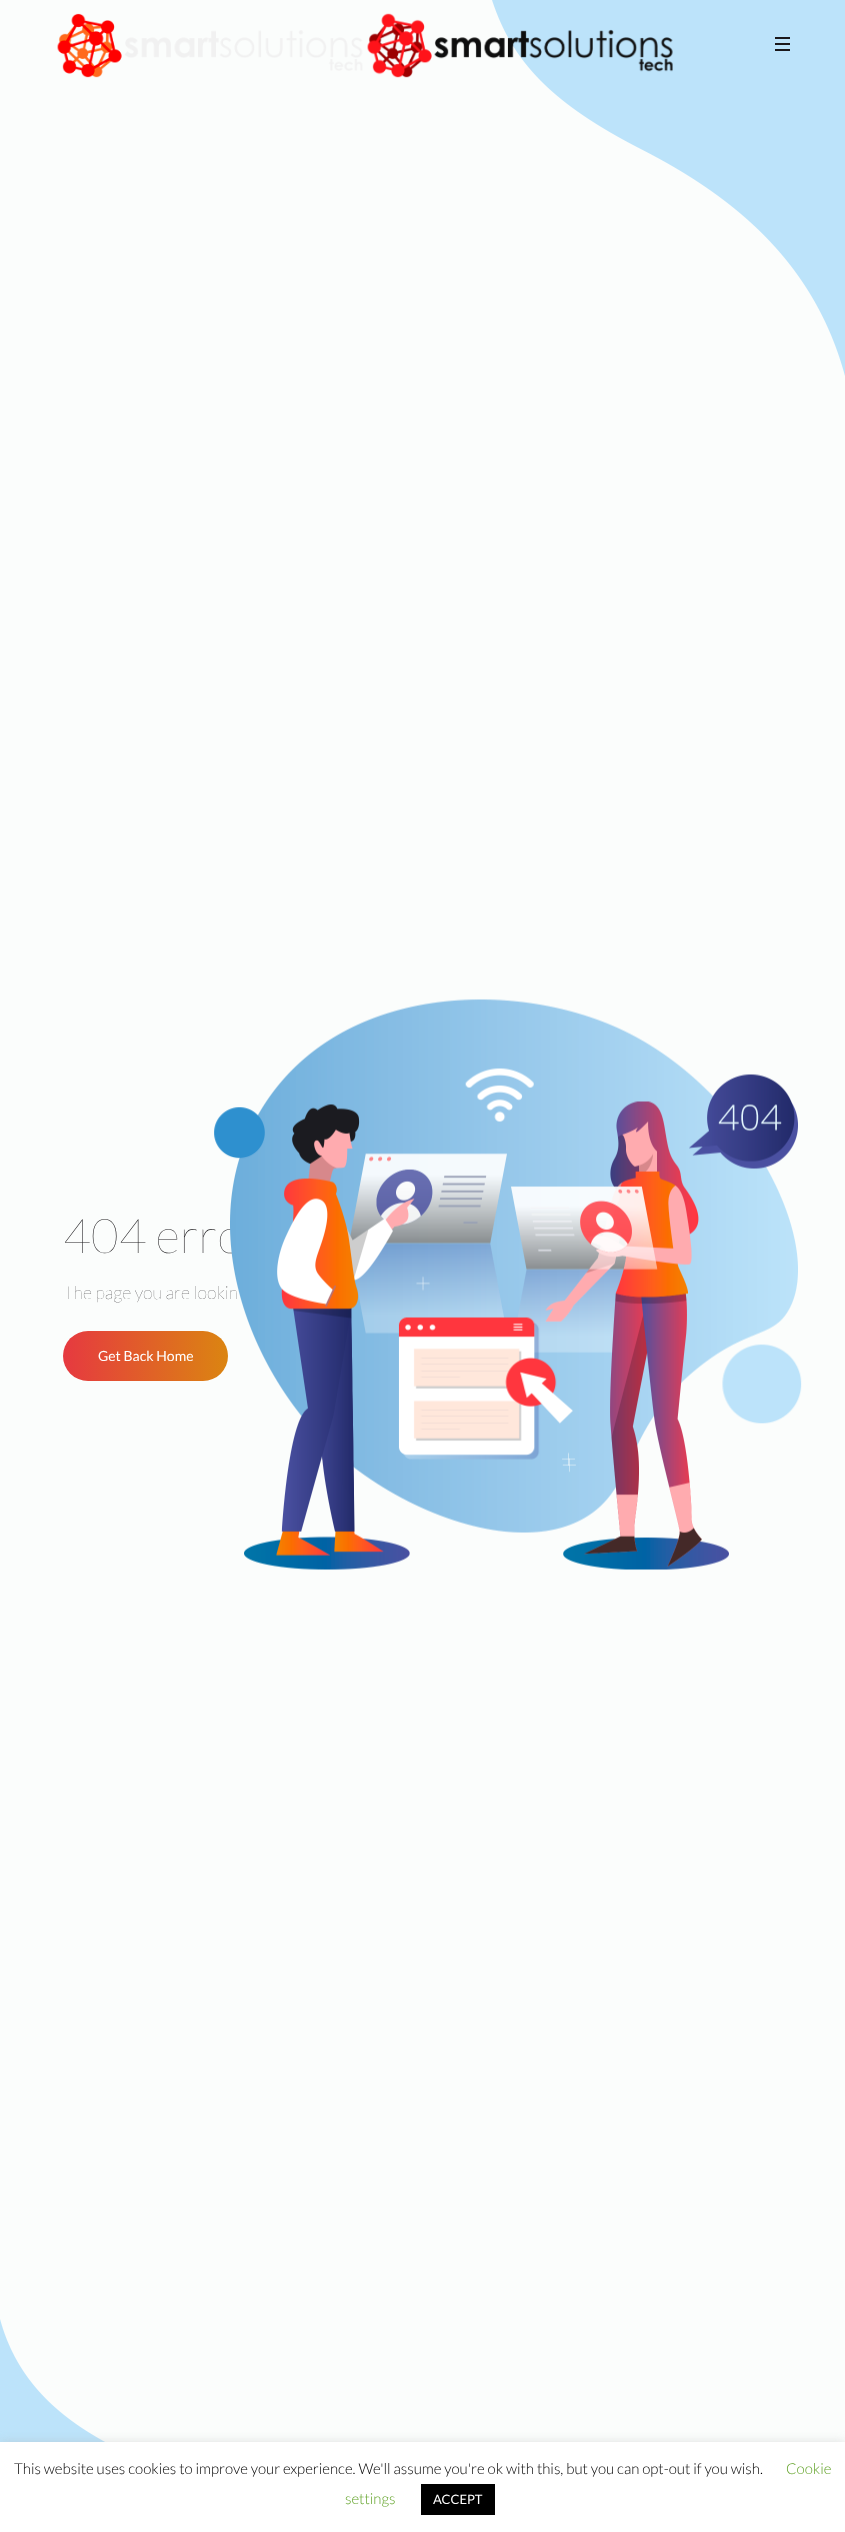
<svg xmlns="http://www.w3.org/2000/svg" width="845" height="2532">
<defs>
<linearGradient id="g1" gradientUnits="userSpaceOnUse" x1="228" y1="1356" x2="63" y2="1356"><stop offset="0" stop-color="#db8511"/><stop offset="1" stop-color="#e63940"/></linearGradient>
</defs>
<rect width="100%" height="100%" fill="#fbfdfc"/>
<image x="57" y="13" width="306" height="65" href="media/1.png"/>
<image x="492" y="0" width="353" height="376" href="media/3.png"/>
<image x="367" y="13" width="306" height="65" href="media/2.png"/>
<rect x="775" y="37" width="15" height="2" fill="#1a181b"/>
<rect x="775" y="43" width="15" height="2" fill="#1a181b"/>
<rect x="775" y="49" width="15" height="2" fill="#1a181b"/>
<image x="0" y="2319" width="105" height="123" href="media/4.png"/>
<text x="63" y="1253" style="font-family:Lato;font-size:48px;font-weight:100;fill:#1a181b">404 erro</text>
<text x="63" y="1299" style="font-family:Lato;font-size:18px;font-weight:100;fill:#1a181b">The page you are lookin</text>
<image x="230" y="999" width="568" height="534" href="media/5.png"/>
<image x="214" y="1107" width="588" height="317" href="media/10.png"/>
<rect x="63" y="1331" width="165" height="50" rx="25" fill="url(#g1)"/>
<text x="98" y="1361" style="font-family:Lato;font-size:14px;fill:#fff">Get Back Home</text>
<image x="511" y="1101" width="218" height="469" href="media/7.png"/>
<image x="244" y="1104" width="263" height="466" href="media/9.png"/>
<image x="465" y="1068" width="69" height="54" href="media/6.png"/>
<image x="689" y="1074" width="109" height="95" href="media/8.png"/>
<image x="398" y="1317" width="177" height="149" href="media/11.png"/>
<rect y="2441" width="845" height="90" fill="#acabab4d" filter="blur(5px)"/>
<rect y="2442" width="845" height="90" fill="#fff"/>
<text x="14" y="2474" style="font-family:Lato;font-size:15px;font-weight:300;fill:#000">This website uses cookies to improve your experience. We'll assume you're ok with this, but you can opt-out if you wish.</text>
<text x="786" y="2474" style="font-family:Lato;font-size:15px;font-weight:300;fill:#62a329">Cookie</text>
<text x="345" y="2504" style="font-family:Lato;font-size:15px;font-weight:300;fill:#62a329">settings</text>
<rect x="421" y="2484" width="74" height="31" fill="#000"/>
<text x="433" y="2504" style="font-family:Lato;font-size:13px;fill:#fff">ACCEPT</text>
</svg>
